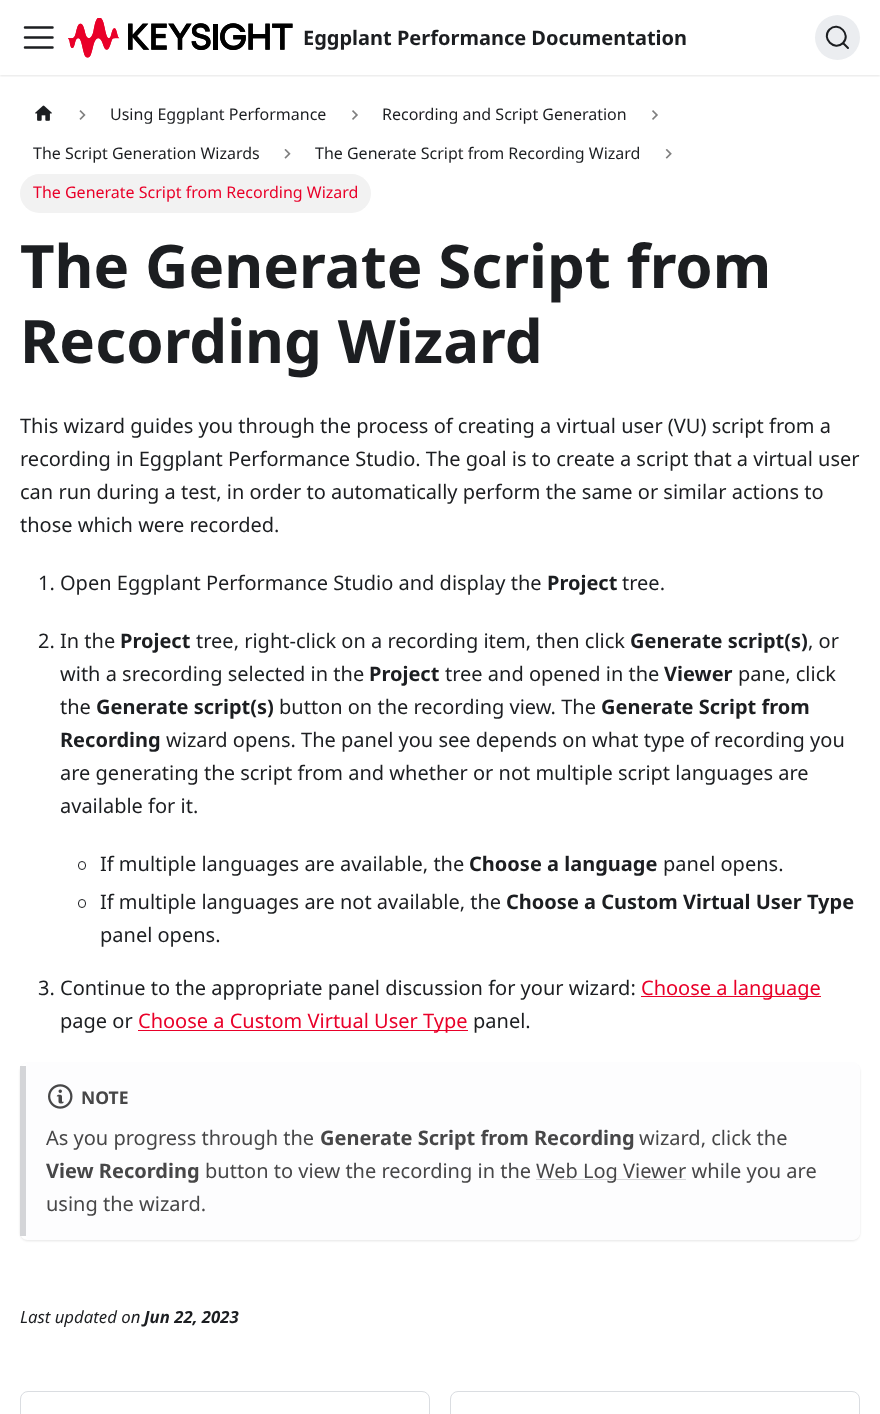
<svg xmlns="http://www.w3.org/2000/svg" width="880" height="1414">
<defs>
<clipPath id="clip1"><rect x="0" y="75" width="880" height="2"/></clipPath>
<clipPath id="clip2"><path d="M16 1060h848v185h-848zm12 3h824c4.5 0 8 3.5 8 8v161c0 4.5-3.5 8-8 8h-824c-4.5 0-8-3.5-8-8v-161c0-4.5 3.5-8 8-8z" clip-rule="evenodd"/></clipPath>
</defs>
<rect width="100%" height="100%" fill="#fff"/>
<g clip-path="url(#clip1)">
<rect y="1" width="880" height="75" fill="#0000001a" filter="blur(1px)"/>
</g>
<path d="M25 27.5h27.5m-27.5 10h27.5m-27.5 10h27.5" fill="none" stroke="#1c1e21" stroke-width="2.5" stroke-linecap="round"/>
<image x="68" y="18" width="225" height="40" href="media/1.png"/>
<text x="303" y="45" style="font-family:Noto Sans;font-size:20px;font-weight:bold;fill:#1c1e21">Eggplant Performance Documentation</text>
<circle cx="837.5" cy="37.5" r="22.5" fill="#ebedf0"/>
<path d="M843 43l5 5l-5-5c-8.5 8.5-22-4.5-13.5-13.5c9-8.5 22 5 13.5 13.5z" fill="none" stroke="#1c1e21" stroke-width="2" stroke-linecap="round" stroke-linejoin="round"/>
<image x="35" y="105" width="17" height="16" href="media/2.png"/>
<image x="79" y="110" width="7" height="10" href="media/3.png"/>
<text x="110" y="120" style="font-family:Noto Sans;font-size:16px;fill:#1c1e21">Using Eggplant Performance</text>
<image x="352" y="110" width="6" height="10" href="media/4.png"/>
<text x="382" y="120" style="font-family:Noto Sans;font-size:16px;fill:#1c1e21">Recording and Script Generation</text>
<image x="652" y="110" width="6" height="10" href="media/4.png"/>
<text x="33" y="159" style="font-family:Noto Sans;font-size:16px;fill:#1c1e21">The Script Generation Wizards</text>
<image x="284" y="149" width="7" height="10" href="media/5.png"/>
<text x="315" y="159" style="font-family:Noto Sans;font-size:16px;fill:#1c1e21">The Generate Script from Recording Wizard</text>
<image x="665" y="149" width="7" height="10" href="media/6.png"/>
<rect x="20" y="174" width="351" height="39" rx="19.5" fill="#f2f2f2"/>
<text x="33" y="198" style="font-family:Noto Sans;font-size:16px;fill:#e90029">The Generate Script from Recording Wizard</text>
<text x="20" y="288" style="font-family:Noto Sans;font-size:60px;font-weight:bold;fill:#1c1e21">The Generate Script from</text>
<text x="20" y="363" style="font-family:Noto Sans;font-size:60px;font-weight:bold;fill:#1c1e21">Recording Wizard</text>
<text x="20" y="433" style="font-family:Noto Sans;font-size:20px;fill:#1c1e21">This wizard guides you through the process of creating a virtual user (VU) script from a</text>
<text x="20" y="466" style="font-family:Noto Sans;font-size:20px;fill:#1c1e21">recording in Eggplant Performance Studio. The goal is to create a script that a virtual user</text>
<text x="20" y="499" style="font-family:Noto Sans;font-size:20px;fill:#1c1e21">can run during a test, in order to automatically perform the same or similar actions to</text>
<text x="20" y="532" style="font-family:Noto Sans;font-size:20px;fill:#1c1e21">those which were recorded.</text>
<text x="38" y="590" style="font-family:Noto Sans;font-size:20px;fill:#1c1e21">1. Open Eggplant Performance Studio and display the</text>
<text x="547" y="590" style="font-family:Noto Sans;font-size:20px;font-weight:bold;fill:#1c1e21">Project</text>
<text x="622" y="590" style="font-family:Noto Sans;font-size:20px;fill:#1c1e21">tree.</text>
<text x="38" y="648" style="font-family:Noto Sans;font-size:20px;fill:#1c1e21">2. In the</text>
<text x="120" y="648" style="font-family:Noto Sans;font-size:20px;font-weight:bold;fill:#1c1e21">Project</text>
<text x="196" y="648" style="font-family:Noto Sans;font-size:20px;fill:#1c1e21">tree, right-click on a recording item, then click</text>
<text x="630" y="648" style="font-family:Noto Sans;font-size:20px;font-weight:bold;fill:#1c1e21">Generate script(s)</text>
<text x="808" y="648" style="font-family:Noto Sans;font-size:20px;fill:#1c1e21">, or</text>
<text x="60" y="681" style="font-family:Noto Sans;font-size:20px;fill:#1c1e21">with a srecording selected in the</text>
<text x="369" y="681" style="font-family:Noto Sans;font-size:20px;font-weight:bold;fill:#1c1e21">Project</text>
<text x="445" y="681" style="font-family:Noto Sans;font-size:20px;fill:#1c1e21">tree and opened in the</text>
<text x="664" y="681" style="font-family:Noto Sans;font-size:20px;font-weight:bold;fill:#1c1e21">Viewer</text>
<text x="738" y="681" style="font-family:Noto Sans;font-size:20px;fill:#1c1e21">pane, click</text>
<text x="60" y="714" style="font-family:Noto Sans;font-size:20px;fill:#1c1e21">the</text>
<text x="96" y="714" style="font-family:Noto Sans;font-size:20px;font-weight:bold;fill:#1c1e21">Generate script(s)</text>
<text x="279" y="714" style="font-family:Noto Sans;font-size:20px;fill:#1c1e21">button on the recording view. The</text>
<text x="601" y="714" style="font-family:Noto Sans;font-size:20px;font-weight:bold;fill:#1c1e21">Generate Script from</text>
<text x="60" y="747" style="font-family:Noto Sans;font-size:20px;font-weight:bold;fill:#1c1e21">Recording</text>
<text x="166" y="747" style="font-family:Noto Sans;font-size:20px;fill:#1c1e21">wizard opens. The panel you see depends on what type of recording you</text>
<text x="60" y="780" style="font-family:Noto Sans;font-size:20px;fill:#1c1e21">are generating the script from and whether or not multiple script languages are</text>
<text x="60" y="813" style="font-family:Noto Sans;font-size:20px;fill:#1c1e21">available for it.</text>
<rect x="78.5" y="861.5" width="7" height="8" rx="3.5" fill="none" stroke="#1c1e21"/>
<text x="100" y="871" style="font-family:Noto Sans;font-size:20px;fill:#1c1e21">If multiple languages are available, the</text>
<text x="469" y="871" style="font-family:Noto Sans;font-size:20px;font-weight:bold;fill:#1c1e21">Choose a language</text>
<text x="663" y="871" style="font-family:Noto Sans;font-size:20px;fill:#1c1e21">panel opens.</text>
<rect x="78.5" y="899.5" width="7" height="8" rx="3.5" fill="none" stroke="#1c1e21"/>
<text x="100" y="909" style="font-family:Noto Sans;font-size:20px;fill:#1c1e21">If multiple languages are not available, the</text>
<text x="506" y="909" style="font-family:Noto Sans;font-size:20px;font-weight:bold;fill:#1c1e21">Choose a Custom Virtual User Type</text>
<text x="100" y="942" style="font-family:Noto Sans;font-size:20px;fill:#1c1e21">panel opens.</text>
<text x="38" y="995" style="font-family:Noto Sans;font-size:20px;fill:#1c1e21">3. Continue to the appropriate panel discussion for your wizard:</text>
<rect x="641" y="996" width="180" height="1" fill="#e90029"/>
<text x="641" y="995" style="font-family:Noto Sans;font-size:20px;fill:#e90029">Choose a language</text>
<text x="60" y="1028" style="font-family:Noto Sans;font-size:20px;fill:#1c1e21">page or</text>
<rect x="138" y="1030" width="330" height="1" fill="#e90029"/>
<text x="138" y="1028" style="font-family:Noto Sans;font-size:20px;fill:#e90029">Choose a Custom Virtual User Type</text>
<text x="473" y="1028" style="font-family:Noto Sans;font-size:20px;fill:#1c1e21">panel.</text>
<g clip-path="url(#clip2)">
<rect x="20" y="1064" width="840" height="177" rx="8" fill="#0000001a" filter="blur(1px)"/>
</g>
<path d="M28 1062h824c4 0 8 4 8 8v162c0 4-4 8-8 8h-824c-1 0-2-4-2-8v-162c0-4 1-8 2-8z" fill="#fdfdfe"/>
<rect x="20" y="1066" width="6" height="170" fill="#d4d5d8"/>
<image x="48" y="1084" width="25" height="25" href="media/7.png"/>
<text x="81" y="1104" style="font-family:Noto Sans;font-size:17.5px;font-weight:bold;fill:#474748">NOTE</text>
<text x="46" y="1145" style="font-family:Noto Sans;font-size:20px;fill:#474748">As you progress through the</text>
<text x="320" y="1145" style="font-family:Noto Sans;font-size:20px;font-weight:bold;fill:#474748">Generate Script from Recording</text>
<text x="639" y="1145" style="font-family:Noto Sans;font-size:20px;fill:#474748">wizard, click the</text>
<text x="46" y="1178" style="font-family:Noto Sans;font-size:20px;font-weight:bold;fill:#474748">View Recording</text>
<text x="205" y="1178" style="font-family:Noto Sans;font-size:20px;fill:#474748">button to view the recording in the</text>
<rect x="536" y="1179" width="150" height="1" fill="#d4d5d8"/>
<text x="536" y="1178" style="font-family:Noto Sans;font-size:20px;fill:#474748">Web Log Viewer while you are</text>
<text x="46" y="1211" style="font-family:Noto Sans;font-size:20px;fill:#474748">using the wizard.</text>
<text x="20" y="1323" style="font-family:Noto Sans;font-size:16.75px;font-style:italic;fill:#1c1e21">Last updated on</text>
<text x="144" y="1323" style="font-family:Noto Sans;font-size:16.75px;font-weight:bold;font-style:italic;fill:#1c1e21">Jun 22, 2023</text>
<rect x="20.5" y="1391.5" width="409" height="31" rx="7.5" fill="none" stroke="#dadde1"/>
<rect x="450.5" y="1391.5" width="409" height="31" rx="7.5" fill="none" stroke="#dadde1"/>
</svg>
